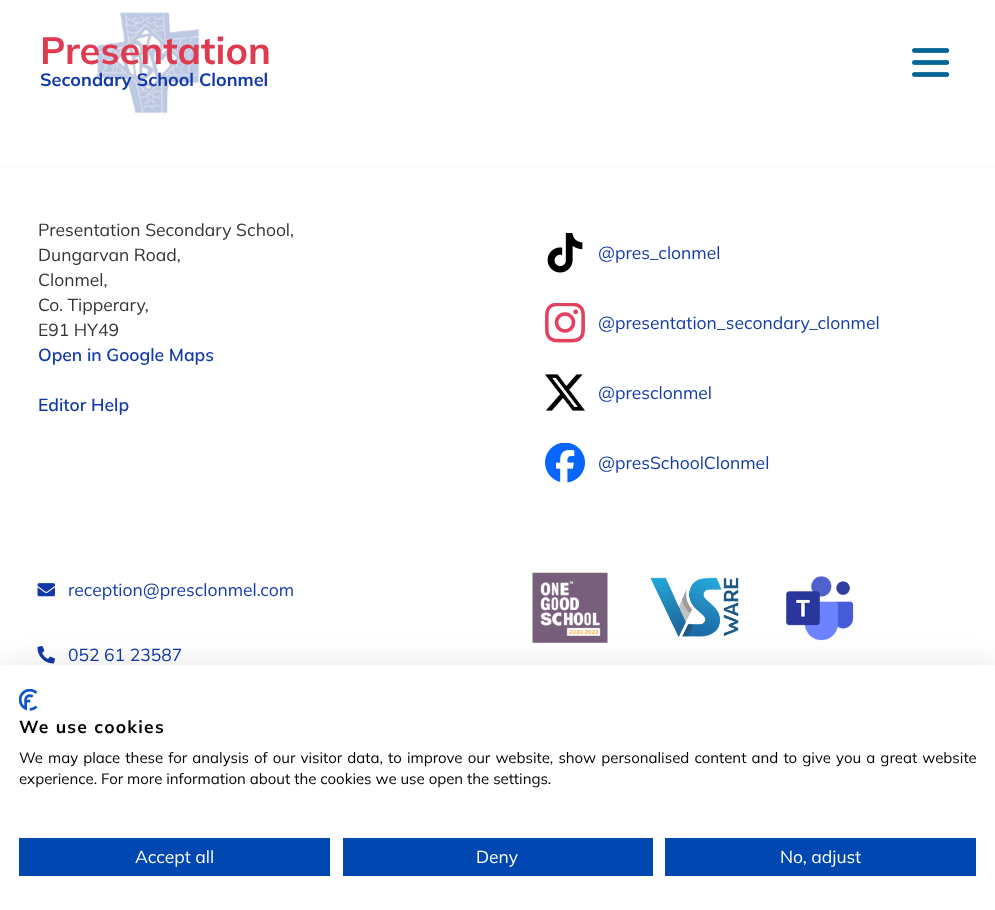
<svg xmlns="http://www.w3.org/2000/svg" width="995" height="910">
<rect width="100%" height="100%" fill="#fff"/>
<image x="97" y="12" width="103" height="102" href="media/1.png"/>
<text x="40" y="64" style="font-family:Mulish;font-size:38px;font-weight:bold;fill:#de3b51">Presentation</text>
<text x="40" y="86" style="font-family:Mulish;font-size:18px;font-weight:bold;fill:#1139a8">Secondary School Clonmel</text>
<image x="912" y="48" width="38" height="29" href="media/2.png"/>
<rect y="166" width="995" height="1" fill="#f7f7f7"/>
<text x="38" y="236" style="font-family:Mulish;font-size:17.5px;fill:#333">Presentation Secondary School,</text>
<text x="38" y="261" style="font-family:Mulish;font-size:17.5px;fill:#333">Dungarvan Road,</text>
<text x="38" y="286" style="font-family:Mulish;font-size:17.5px;fill:#333">Clonmel,</text>
<text x="38" y="311" style="font-family:Mulish;font-size:17.5px;fill:#333">Co. Tipperary,</text>
<text x="38" y="336" style="font-family:Mulish;font-size:17.5px;fill:#333">E91 HY49</text>
<text x="38" y="361" style="font-family:Mulish;font-size:17.5px;font-weight:600;fill:#1139a8">Open in Google Maps</text>
<text x="38" y="411" style="font-family:Mulish;font-size:17.5px;font-weight:600;fill:#1139a8">Editor Help</text>
<image x="547" y="233" width="36" height="40" href="media/3.png"/>
<text x="598" y="259" style="font-family:Mulish;font-size:17.5px;fill:#1139a8">@pres_clonmel</text>
<image x="545" y="303" width="40" height="40" href="media/4.png"/>
<text x="598" y="329" style="font-family:Mulish;font-size:17.5px;fill:#1139a8">@presentation_secondary_clonmel</text>
<image x="545" y="374" width="40" height="37" href="media/5.png"/>
<text x="598" y="399" style="font-family:Mulish;font-size:17.5px;fill:#1139a8">@presclonmel</text>
<image x="545" y="443" width="40" height="40" href="media/6.png"/>
<text x="598" y="469" style="font-family:Mulish;font-size:17.5px;fill:#1139a8">@presSchoolClonmel</text>
<image x="37" y="583" width="18" height="14" href="media/7.png"/>
<text x="68" y="596" style="font-family:Mulish;font-size:17.5px;fill:#1139a8">reception@presclonmel.com</text>
<image x="37" y="646" width="18" height="18" href="media/8.png"/>
<text x="68" y="661" style="font-family:Mulish;font-size:17.5px;fill:#1139a8">052 61 23587</text>
<image x="532" y="572" width="76" height="71" href="media/9.png"/>
<image x="650" y="577" width="89" height="60" href="media/10.png"/>
<image x="786" y="576" width="68" height="65" href="media/11.png"/>
<rect y="665" width="995" height="245" fill="#0000001a" filter="blur(15px)"/>
<rect y="665" width="995" height="245" fill="#fff"/>
<image x="19" y="689" width="19" height="22" href="media/12.png"/>
<text x="19" y="733" style="font-family:Mulish;font-size:17.5px;font-weight:bold;letter-spacing:1.25px;fill:#000">We use cookies</text>
<text x="19" y="763" word-spacing="1.2" style="font-family:Mulish;font-size:15px;fill:#000">We may place these for analysis of our visitor data, to improve our website, show personalised content and to give you a great website</text>
<text x="19" y="784" style="font-family:Mulish;font-size:15px;fill:#000">experience. For more information about the cookies we use open the settings.</text>
<rect x="19" y="838" width="311" height="38" fill="#0047b2"/>
<text x="135" y="863" style="font-family:Mulish;font-size:17.5px;fill:#fff">Accept all</text>
<rect x="343" y="838" width="310" height="38" fill="#0047b2"/>
<text x="476" y="863" style="font-family:Mulish;font-size:17.5px;fill:#fff">Deny</text>
<rect x="665" y="838" width="311" height="38" fill="#0047b2"/>
<text x="780" y="863" style="font-family:Mulish;font-size:17.5px;fill:#fff">No, adjust</text>
</svg>
